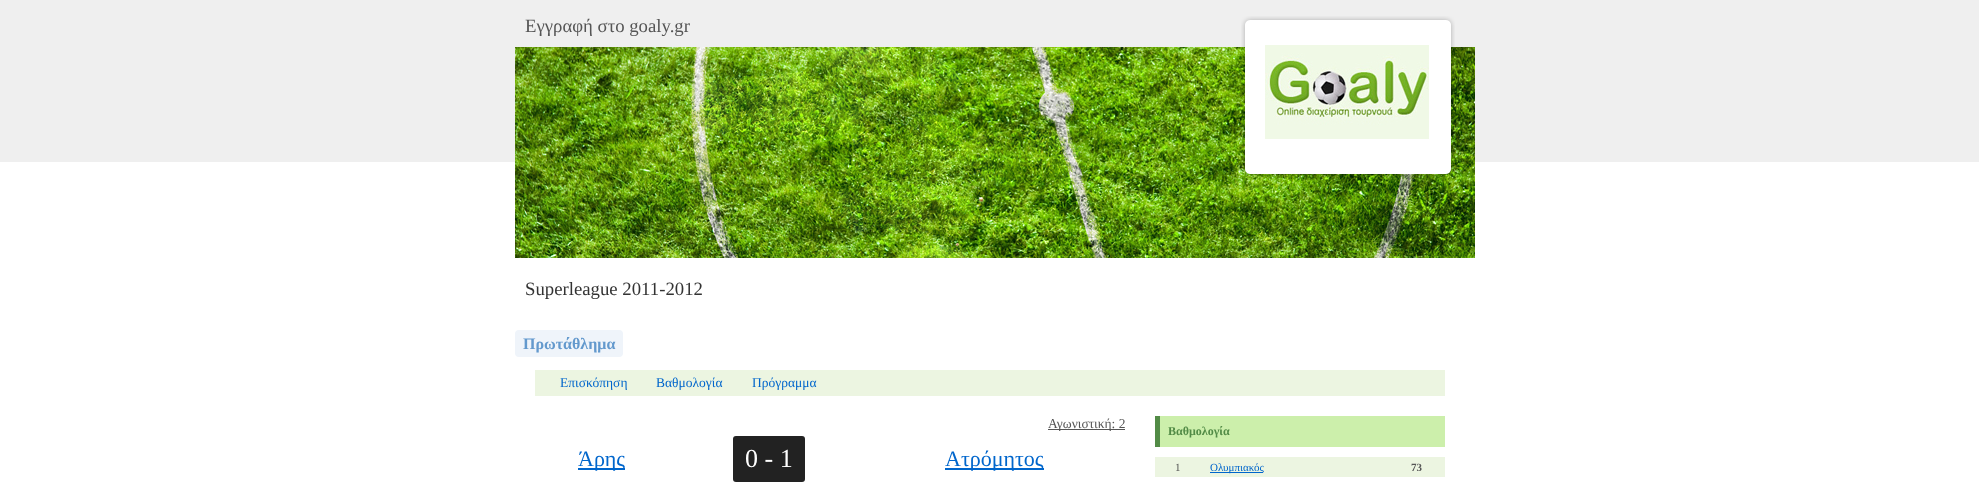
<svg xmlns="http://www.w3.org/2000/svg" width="1979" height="484">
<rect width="100%" height="100%" fill="#fff"/>
<rect width="1979" height="162" fill="#efefef"/>
<text x="525" y="32" style="font-family:Liberation Serif;font-size:18.75px;fill:#555">Εγγραφή στο goaly.gr</text>
<image x="515" y="47" width="960" height="211" href="media/3.png"/>
<image x="1241" y="16" width="214" height="162" href="media/1.png"/>
<image x="1265" y="45" width="164" height="94" href="media/2.png"/>
<text x="525" y="295" style="font-family:Liberation Serif;font-size:18.75px;fill:#333">Superleague 2011-2012</text>
<rect x="515" y="330" width="108" height="27" rx="4" fill="#eff4fa"/>
<text x="523" y="349" style="font-family:Liberation Serif;font-size:16px;font-weight:bold;fill:#6399cd">Πρωτάθλημα</text>
<rect x="535" y="370" width="910" height="26" fill="#ecf5e1"/>
<text x="560" y="387" style="font-family:Liberation Serif;font-size:13.5px;fill:#06c">Επισκόπηση</text>
<text x="656" y="387" style="font-family:Liberation Serif;font-size:13.5px;fill:#06c">Βαθμολογία</text>
<text x="752" y="387" style="font-family:Liberation Serif;font-size:13.5px;fill:#06c">Πρόγραμμα</text>
<rect x="1048" y="429" width="77" height="1" fill="#555"/>
<text x="1048" y="428" style="font-family:Liberation Serif;font-size:13.5px;fill:#555">Αγωνιστική: 2</text>
<rect x="578" y="468" width="47" height="2" fill="#06c"/>
<text x="578" y="466" style="font-family:Liberation Serif;font-size:22px;fill:#06c">Άρης</text>
<rect x="733" y="436" width="72" height="46" rx="3" fill="#222"/>
<text x="745" y="467" style="font-family:Liberation Serif;font-size:26px;fill:#fff">0 - 1</text>
<rect x="945" y="468" width="99" height="2" fill="#06c"/>
<text x="945" y="466" style="font-family:Liberation Serif;font-size:22px;fill:#06c">Ατρόμητος</text>
<rect x="1160" y="416" width="285" height="31" fill="#ccefab"/>
<rect x="1155" y="416" width="5" height="31" fill="#528b46"/>
<text x="1168" y="435" style="font-family:Liberation Serif;font-size:12px;font-weight:bold;fill:#528b46">Βαθμολογία</text>
<rect x="1155" y="457" width="290" height="20" fill="#ecf5e1"/>
<text x="1175" y="471" style="font-family:Liberation Serif;font-size:11px;fill:#555">1</text>
<rect x="1210" y="472" width="53" height="1" fill="#06c"/>
<text x="1210" y="471" style="font-family:Liberation Serif;font-size:11px;fill:#06c">Ολυμπιακός</text>
<text x="1411" y="471" style="font-family:Liberation Serif;font-size:11px;font-weight:bold;fill:#555">73</text>
</svg>
